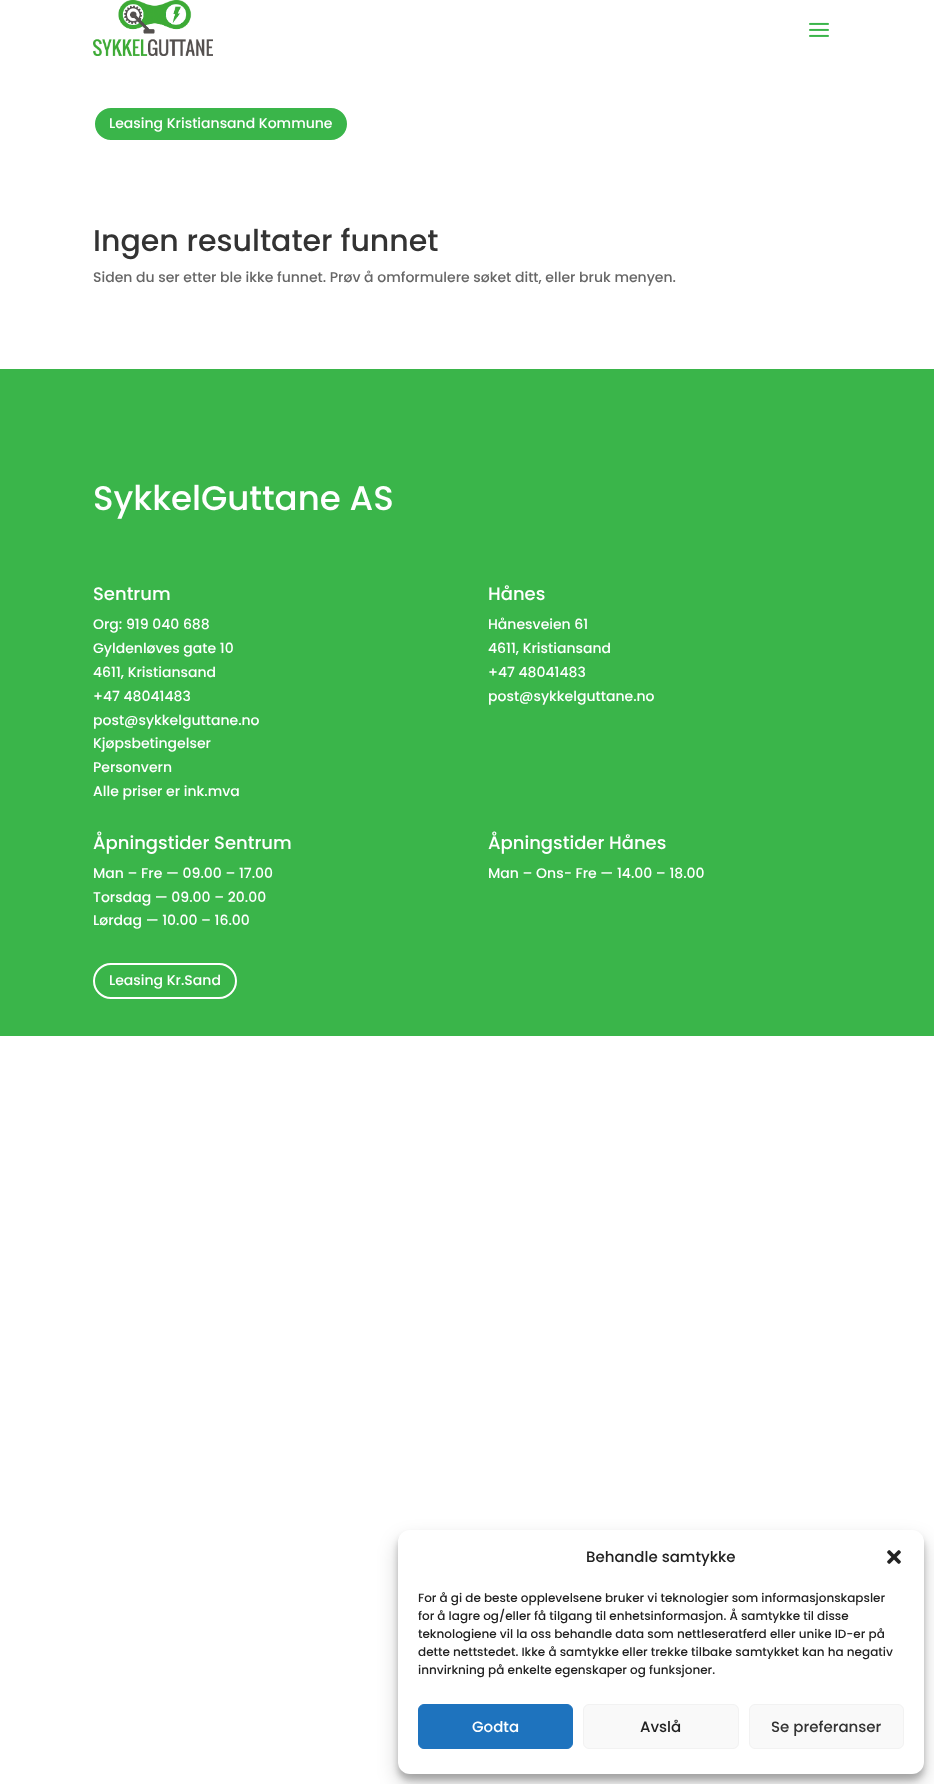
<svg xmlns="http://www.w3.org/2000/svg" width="934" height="1784">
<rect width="100%" height="100%" fill="#fff"/>
<image x="93" y="0" width="120" height="56" href="media/1.png"/>
<image x="809" y="22" width="20" height="15" href="media/2.png"/>
<rect x="94" y="107" width="254" height="34" rx="17" fill="#3ab54a" stroke="#fff" stroke-width="2"/>
<text x="109" y="128" style="font-family:Poppins;font-size:14px;font-weight:500;fill:#fff">Leasing Kristiansand Kommune</text>
<text x="93" y="251" style="font-family:Poppins;font-size:30px;font-weight:500;fill:#333">Ingen resultater funnet</text>
<text x="93" y="282" style="font-family:Poppins;font-size:14px;font-weight:500;fill:#666">Siden du ser etter ble ikke funnet. Prøv å omformulere søket ditt, eller bruk menyen.</text>
<rect y="369" width="934" height="667" fill="#3ab54a"/>
<text x="93" y="510" style="font-family:Poppins;font-size:34px;font-weight:500;fill:#fff">SykkelGuttane AS</text>
<text x="93" y="600" style="font-family:Poppins;font-size:18px;font-weight:500;fill:#fff">Sentrum</text>
<text x="93" y="629" style="font-family:Poppins;font-size:14px;font-weight:500;fill:#fff">Org: 919 040 688</text>
<text x="93" y="653" style="font-family:Poppins;font-size:14px;font-weight:500;fill:#fff">Gyldenløves gate 10</text>
<text x="93" y="677" style="font-family:Poppins;font-size:14px;font-weight:500;fill:#fff">4611, Kristiansand</text>
<text x="93" y="701" style="font-family:Poppins;font-size:14px;font-weight:500;fill:#fff">+47 48041483</text>
<text x="93" y="725" style="font-family:Poppins;font-size:14px;font-weight:500;fill:#fff">post@sykkelguttane.no</text>
<text x="93" y="748" style="font-family:Poppins;font-size:14px;font-weight:500;fill:#fff">Kjøpsbetingelser</text>
<text x="93" y="772" style="font-family:Poppins;font-size:14px;font-weight:500;fill:#fff">Personvern</text>
<text x="93" y="796" style="font-family:Poppins;font-size:14px;font-weight:500;fill:#fff">Alle priser er ink.mva</text>
<text x="488" y="600" style="font-family:Poppins;font-size:18px;font-weight:500;fill:#fff">Hånes</text>
<text x="488" y="629" style="font-family:Poppins;font-size:14px;font-weight:500;fill:#fff">Hånesveien 61</text>
<text x="488" y="653" style="font-family:Poppins;font-size:14px;font-weight:500;fill:#fff">4611, Kristiansand</text>
<text x="488" y="677" style="font-family:Poppins;font-size:14px;font-weight:500;fill:#fff">+47 48041483</text>
<text x="488" y="701" style="font-family:Poppins;font-size:14px;font-weight:500;fill:#fff">post@sykkelguttane.no</text>
<text x="93" y="849" style="font-family:Poppins;font-size:18px;font-weight:500;fill:#fff">Åpningstider Sentrum</text>
<text x="93" y="878" style="font-family:Poppins;font-size:14px;font-weight:500;fill:#fff">Man – Fre — 09.00 – 17.00</text>
<text x="93" y="902" style="font-family:Poppins;font-size:14px;font-weight:500;fill:#fff">Torsdag — 09.00 – 20.00</text>
<text x="93" y="925" style="font-family:Poppins;font-size:14px;font-weight:500;fill:#fff">Lørdag — 10.00 – 16.00</text>
<rect x="94" y="964" width="142" height="34" rx="17" fill="none" stroke="#fff" stroke-width="2"/>
<text x="109" y="985" style="font-family:Poppins;font-size:14px;font-weight:500;fill:#fff">Leasing Kr.Sand</text>
<text x="488" y="849" style="font-family:Poppins;font-size:18px;font-weight:500;fill:#fff">Åpningstider Hånes</text>
<text x="488" y="878" style="font-family:Poppins;font-size:14px;font-weight:500;fill:#fff">Man – Ons- Fre — 14.00 – 18.00</text>
<rect x="398" y="1536" width="526" height="244" rx="12" fill="#0000003b" filter="blur(3px)"/>
<rect x="398" y="1540" width="526" height="244" rx="12" fill="#00000030" filter="blur(10px)"/>
<rect x="398" y="1530" width="526" height="244" rx="12" fill="#fff"/>
<text x="586" y="1562" style="font-family:Poppins;font-size:15px;font-weight:500;fill:#222">Behandle samtykke</text>
<image x="887" y="1550" width="14" height="14" href="media/3.png"/>
<text x="418" y="1602" style="font-family:Poppins;font-size:12px;font-weight:500;fill:#222">For å gi de beste opplevelsene bruker vi teknologier som informasjonskapsler</text>
<text x="418" y="1620" style="font-family:Poppins;font-size:12px;font-weight:500;fill:#222">for å lagre og/eller få tilgang til enhetsinformasjon. Å samtykke til disse</text>
<text x="418" y="1638" style="font-family:Poppins;font-size:12px;font-weight:500;fill:#222">teknologiene vil la oss behandle data som nettleseratferd eller unike ID-er på</text>
<text x="418" y="1656" style="font-family:Poppins;font-size:12px;font-weight:500;fill:#222">dette nettstedet. Ikke å samtykke eller trekke tilbake samtykket kan ha negativ</text>
<text x="418" y="1674" style="font-family:Poppins;font-size:12px;font-weight:500;fill:#222">innvirkning på enkelte egenskaper og funksjoner.</text>
<rect x="418.5" y="1704.5" width="154" height="44" rx="5.5" fill="#1e73be" stroke="#1e73be"/>
<text x="472" y="1732" style="font-family:Poppins;font-size:15px;font-weight:500;fill:#fff">Godta</text>
<rect x="583.5" y="1704.5" width="155" height="44" rx="5.5" fill="#f9f9f9" stroke="#f2f2f2"/>
<text x="640" y="1732" style="font-family:Poppins;font-size:15px;font-weight:500;fill:#222">Avslå</text>
<rect x="749.5" y="1704.5" width="154" height="44" rx="5.5" fill="#f9f9f9" stroke="#f2f2f2"/>
<text x="771" y="1732" style="font-family:Poppins;font-size:15px;font-weight:500;fill:#333">Se preferanser</text>
</svg>
